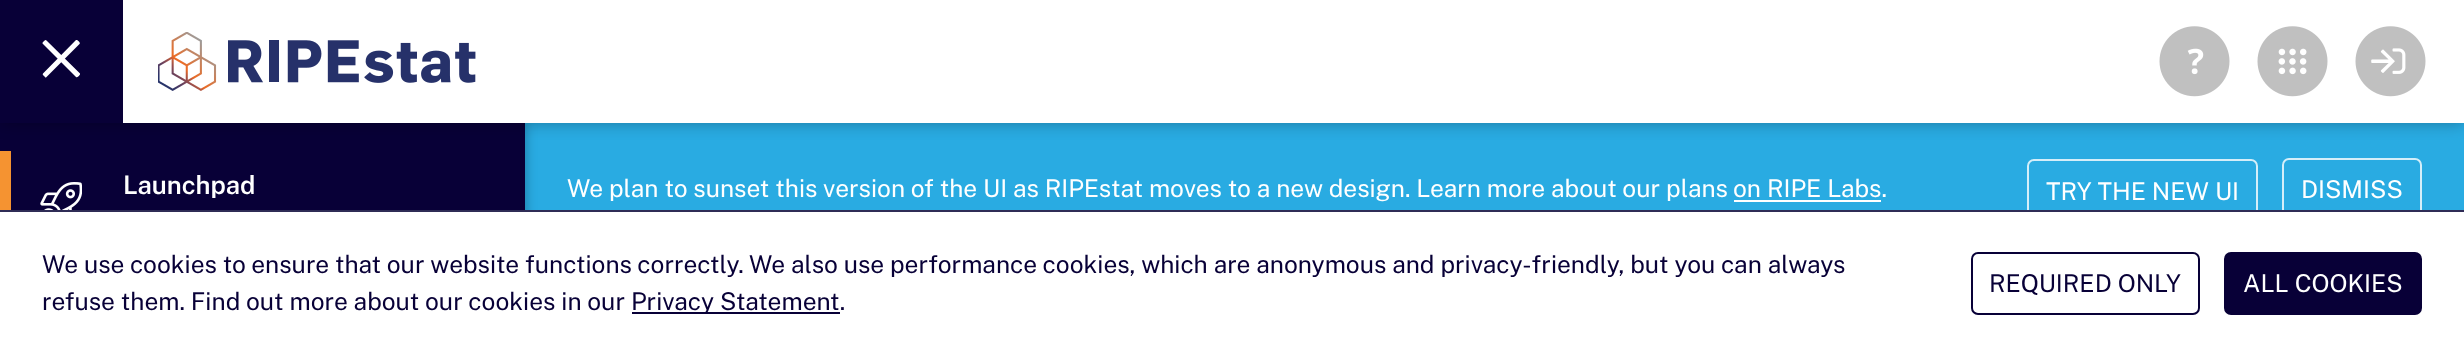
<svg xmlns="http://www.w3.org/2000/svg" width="2464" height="354">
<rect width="100%" height="100%" fill="#29abe2"/>
<rect y="123" width="525" height="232" fill="#0000004d" filter="blur(6px)"/>
<rect y="123" width="525" height="87" fill="#080037"/>
<rect width="2464" height="123" fill="#0000004d" filter="blur(8px)"/>
<rect x="123" width="2341" height="123" fill="#fff"/>
<rect width="123" height="123" fill="#080037"/>
<path d="M79.5 44l-33.5 33.5c-1 0-1-.5-1.5-1c-1-1-2.5-2-1.5-3l33-33.5h1c1 .5 4 3 2.5 4z" fill="#fff"/>
<path d="M76 77l-33.5-33.5c0-1 .5-1.5 1-2c.5-.5 2-2.5 3-1l33.5 33v1c-.5 1-3 3.5-4 2.5z" fill="#fff"/>
<image x="158" y="32" width="318" height="59" href="media/1.png"/>
<image x="2159" y="26" width="71" height="71" href="media/2.png"/>
<image x="2257" y="26" width="71" height="71" href="media/3.png"/>
<image x="2355" y="26" width="71" height="71" href="media/4.png"/>
<rect y="151" width="11" height="59" fill="#f59331"/>
<image x="40" y="182" width="42" height="28" href="media/5.png"/>
<text x="123" y="194" style="font-family:Public Sans;font-size:25.5px;font-weight:600;fill:#fff">Launchpad</text>
<text x="567" y="197" style="font-family:Public Sans;font-size:24.5px;fill:#fff">We plan to sunset this version of the UI as RIPEstat moves to a new design. Learn more about our plans</text>
<text x="1733" y="197" style="font-family:Public Sans;font-size:24.5px;fill:#fff">on RIPE Labs.</text>
<rect x="1734" y="200" width="147" height="2" fill="#fff"/>
<rect x="2028" y="160" width="229" height="61" rx="6" fill="none" stroke="#d4eef9" stroke-width="2"/>
<text x="2046" y="200" style="font-family:Public Sans;font-size:24.5px;fill:#fff">TRY THE NEW UI</text>
<rect x="2283" y="159" width="138" height="61" rx="6" fill="none" stroke="#d4eef9" stroke-width="2"/>
<text x="2301" y="198" style="font-family:Public Sans;font-size:24.5px;fill:#fff">DISMISS</text>
<rect y="212" width="2464" height="142" fill="#fff"/>
<rect y="210" width="2464" height="2" fill="#2f2c56"/>
<text x="42" y="273" style="font-family:Public Sans;font-size:24.5px;fill:#080037">We use cookies to ensure that our website functions correctly. We also use performance cookies, which are anonymous and privacy-friendly, but you can always</text>
<text x="42" y="310" style="font-family:Public Sans;font-size:24.5px;fill:#080037">refuse them. Find out more about our cookies in our</text>
<rect x="632" y="312" width="208" height="2" fill="#080037"/>
<text x="631" y="310" style="font-family:Public Sans;font-size:24.5px;fill:#080037">Privacy Statement.</text>
<rect x="1972" y="253" width="227" height="61" rx="6" fill="none" stroke="#080037" stroke-width="2"/>
<text x="1989" y="292" style="font-family:Public Sans;font-size:24.5px;fill:#080037">REQUIRED ONLY</text>
<rect x="2225" y="253" width="196" height="61" rx="6" fill="#080037" stroke="#080037" stroke-width="2"/>
<text x="2243" y="292" style="font-family:Public Sans;font-size:24.5px;fill:#fff">ALL COOKIES</text>
</svg>
